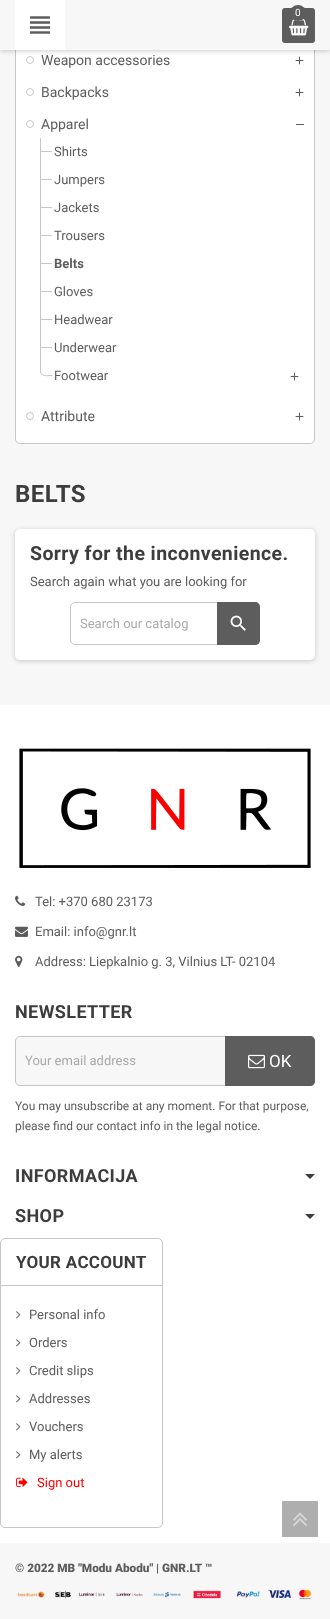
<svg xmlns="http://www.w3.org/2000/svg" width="330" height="1619">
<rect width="100%" height="100%" fill="#fff"/>
<rect y="50" width="330" height="655" fill="#f7f7f7"/>
<rect x="15.5" y="-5.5" width="299" height="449" rx="4.5" fill="#fff" stroke="#c7c7c7"/>
<circle cx="30" cy="60" r="3.5" fill="none" stroke="#c7c7c7"/>
<image x="295" y="56" width="9" height="9" href="media/3.png"/>
<rect y="1" width="330" height="50" fill="#00000033" filter="blur(2.5px)"/>
<rect width="330" height="50" fill="#f7f7f7"/>
<rect x="15" width="50" height="50" fill="#fff"/>
<image x="30" y="16" width="20" height="18" href="media/1.png"/>
<rect x="282" y="8" width="33" height="35" rx="3" fill="#5d5d5d"/>
<image x="289" y="19" width="20" height="17" href="media/2.png"/>
<circle cx="298" cy="13" r="8" fill="#5d5d5d"/>
<text x="295" y="16" style="font-family:Roboto;font-size:10px;fill:#fff">0</text>
<text x="41" y="65" style="font-family:Roboto;font-size:14px;fill:#5d5d5d">Weapon accessories</text>
<circle cx="30" cy="92" r="3.5" fill="none" stroke="#c7c7c7"/>
<text x="41" y="97" style="font-family:Roboto;font-size:14px;fill:#5d5d5d">Backpacks</text>
<image x="295" y="88" width="9" height="9" href="media/3.png"/>
<circle cx="30" cy="124" r="3.5" fill="none" stroke="#c7c7c7"/>
<text x="41" y="129" style="font-family:Roboto;font-size:14px;fill:#5d5d5d">Apparel</text>
<rect x="296" y="124" width="8" height="1" fill="#5d5d5d"/>
<rect x="40" y="151" width="12" height="1" fill="#c7c7c7"/>
<rect x="40" y="138" width="1" height="34" fill="#c7c7c7"/>
<text x="54" y="156" style="font-family:Roboto;font-size:13px;fill:#5d5d5d">Shirts</text>
<rect x="40" y="179" width="12" height="1" fill="#c7c7c7"/>
<rect x="40" y="166" width="1" height="34" fill="#c7c7c7"/>
<text x="54" y="184" style="font-family:Roboto;font-size:13px;fill:#5d5d5d">Jumpers</text>
<rect x="40" y="207" width="12" height="1" fill="#c7c7c7"/>
<rect x="40" y="194" width="1" height="34" fill="#c7c7c7"/>
<text x="54" y="212" style="font-family:Roboto;font-size:13px;fill:#5d5d5d">Jackets</text>
<rect x="40" y="235" width="12" height="1" fill="#c7c7c7"/>
<rect x="40" y="222" width="1" height="34" fill="#c7c7c7"/>
<text x="54" y="240" style="font-family:Roboto;font-size:13px;fill:#5d5d5d">Trousers</text>
<rect x="40" y="263" width="12" height="1" fill="#c7c7c7"/>
<rect x="40" y="250" width="1" height="34" fill="#c7c7c7"/>
<text x="54" y="268" style="font-family:'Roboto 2';font-size:13px;font-weight:bold;fill:#5d5d5d">Belts</text>
<rect x="40" y="291" width="12" height="1" fill="#c7c7c7"/>
<rect x="40" y="278" width="1" height="34" fill="#c7c7c7"/>
<text x="54" y="296" style="font-family:Roboto;font-size:13px;fill:#5d5d5d">Gloves</text>
<rect x="40" y="319" width="12" height="1" fill="#c7c7c7"/>
<rect x="40" y="306" width="1" height="34" fill="#c7c7c7"/>
<text x="54" y="324" style="font-family:Roboto;font-size:13px;fill:#5d5d5d">Headwear</text>
<rect x="40" y="347" width="12" height="1" fill="#c7c7c7"/>
<rect x="40" y="334" width="1" height="34" fill="#c7c7c7"/>
<text x="54" y="352" style="font-family:Roboto;font-size:13px;fill:#5d5d5d">Underwear</text>
<path d="M40 362h12v14c-4 0-12 1.5-12-5zm1 0h11v13c-3.5 0-11 1.5-11-4z" fill="#c7c7c7" fill-rule="evenodd"/>
<text x="54" y="380" style="font-family:Roboto;font-size:13px;fill:#5d5d5d">Footwear</text>
<image x="290" y="372" width="9" height="9" href="media/3.png"/>
<circle cx="30" cy="416" r="3.5" fill="none" stroke="#c7c7c7"/>
<text x="41" y="421" style="font-family:Roboto;font-size:14px;fill:#5d5d5d">Attribute</text>
<image x="295" y="412" width="9" height="9" href="media/3.png"/>
<text x="15" y="502" style="font-family:Roboto;font-size:24px;font-weight:bold;letter-spacing:0.5px;fill:#3d3d3d">BELTS</text>
<rect x="15" y="530" width="300" height="131" rx="5" fill="#00000033" filter="blur(2.5px)"/>
<rect x="15" y="529" width="300" height="131" rx="5" fill="#fff"/>
<text x="30" y="560" style="font-family:Roboto;font-size:19.5px;font-weight:bold;letter-spacing:0.4px;fill:#3d3d3d">Sorry for the inconvenience.</text>
<text x="30" y="586" style="font-family:Roboto;font-size:13px;fill:#5d5d5d">Search again what you are looking for</text>
<rect x="70.5" y="602.5" width="188" height="42" rx="4.5" fill="none" stroke="#c7c7c7"/>
<text x="80" y="628" style="font-family:Roboto;font-size:13px;fill:#aaa">Search our catalog</text>
<path d="M217 602h38c3 0 5 2 5 5v33c0 3-2 5-5 5h-38z" fill="#5d5d5d"/>
<image x="230" y="615" width="16" height="16" href="media/4.png"/>
<image x="19" y="748" width="292" height="120" href="media/5.png"/>
<image x="15" y="895" width="11" height="11" href="media/6.png"/>
<text x="35" y="906" style="font-family:Roboto;font-size:13px;fill:#5d5d5d">Tel: +370 680 23173</text>
<image x="15" y="926" width="13" height="11" href="media/7.png"/>
<text x="35" y="936" style="font-family:Roboto;font-size:13px;fill:#5d5d5d">Email: info@gnr.lt</text>
<image x="15" y="955" width="8" height="12" href="media/8.png"/>
<text x="35" y="966" style="font-family:Roboto;font-size:13px;fill:#5d5d5d">Address: Liepkalnio g. 3, Vilnius LT- 02104</text>
<text x="15" y="1018" style="font-family:Roboto;font-size:18px;font-weight:bold;letter-spacing:0.4px;fill:#3d3d3d">NEWSLETTER</text>
<path d="M20 1036.5h205.5v49h-205.5c-2.5 0-4.5-2-4.5-4.5v-40c0-2.5 2-4.5 4.5-4.5z" fill="#f7f7f7" stroke="#c7c7c7"/>
<text x="25" y="1065" style="font-family:Roboto;font-size:13px;fill:#aaa">Your email address</text>
<path d="M225 1036h85c3 0 5 2 5 5v40c0 3-2 5-5 5h-85z" fill="#5d5d5d"/>
<image x="248" y="1054" width="17" height="15" href="media/9.png"/>
<text x="269" y="1067" style="font-family:Roboto;font-size:17px;fill:#fff">OK</text>
<text x="15" y="1110" style="font-family:Roboto;font-size:12px;fill:#5d5d5d">You may unsubscribe at any moment. For that purpose,</text>
<text x="15" y="1130" style="font-family:Roboto;font-size:12px;fill:#5d5d5d">please find our contact info in the legal notice.</text>
<text x="15" y="1182" style="font-family:Roboto;font-size:18px;font-weight:bold;letter-spacing:0.4px;fill:#3d3d3d">INFORMACIJA</text>
<path d="M305 1174h10l-5 5z" fill="#3d3d3d"/>
<text x="15" y="1222" style="font-family:Roboto;font-size:18px;font-weight:bold;letter-spacing:0.4px;fill:#3d3d3d">SHOP</text>
<path d="M305 1214h10l-5 5z" fill="#3d3d3d"/>
<rect x="0.5" y="1238.5" width="162" height="289" rx="4.5" fill="none" stroke="#c7c7c7"/>
<rect x="1" y="1285" width="161" height="1" fill="#c7c7c7"/>
<text x="16" y="1268" style="font-family:Roboto;font-size:17px;font-weight:bold;letter-spacing:0.3px;fill:#3d3d3d">YOUR ACCOUNT</text>
<image x="16" y="1311" width="5" height="8" href="media/10.png"/>
<text x="29" y="1319" style="font-family:Roboto;font-size:13px;fill:#5d5d5d">Personal info</text>
<image x="16" y="1339" width="5" height="8" href="media/10.png"/>
<text x="29" y="1347" style="font-family:Roboto;font-size:13px;fill:#5d5d5d">Orders</text>
<image x="16" y="1367" width="5" height="8" href="media/10.png"/>
<text x="29" y="1375" style="font-family:Roboto;font-size:13px;fill:#5d5d5d">Credit slips</text>
<image x="16" y="1395" width="5" height="8" href="media/10.png"/>
<text x="29" y="1403" style="font-family:Roboto;font-size:13px;fill:#5d5d5d">Addresses</text>
<image x="16" y="1423" width="5" height="8" href="media/10.png"/>
<text x="29" y="1431" style="font-family:Roboto;font-size:13px;fill:#5d5d5d">Vouchers</text>
<image x="16" y="1451" width="5" height="8" href="media/10.png"/>
<text x="29" y="1459" style="font-family:Roboto;font-size:13px;fill:#5d5d5d">My alerts</text>
<image x="16" y="1477" width="12" height="10" href="media/11.png"/>
<text x="37" y="1487" style="font-family:Roboto;font-size:13px;fill:#f00">Sign out</text>
<rect y="1543" width="330" height="76" fill="#f7f7f7"/>
<text x="15" y="1572" style="font-family:Roboto;font-size:11.75px;font-weight:900;fill:#5d5d5d">© 2022 MB "Modu Abodu" | GNR.LT ™</text>
<image x="17" y="1589" width="295" height="11" href="media/12.png"/>
<rect x="282" y="1501" width="36" height="36" fill="#aeaeae"/>
<image x="293" y="1512" width="14" height="14" href="media/13.png"/>
</svg>
